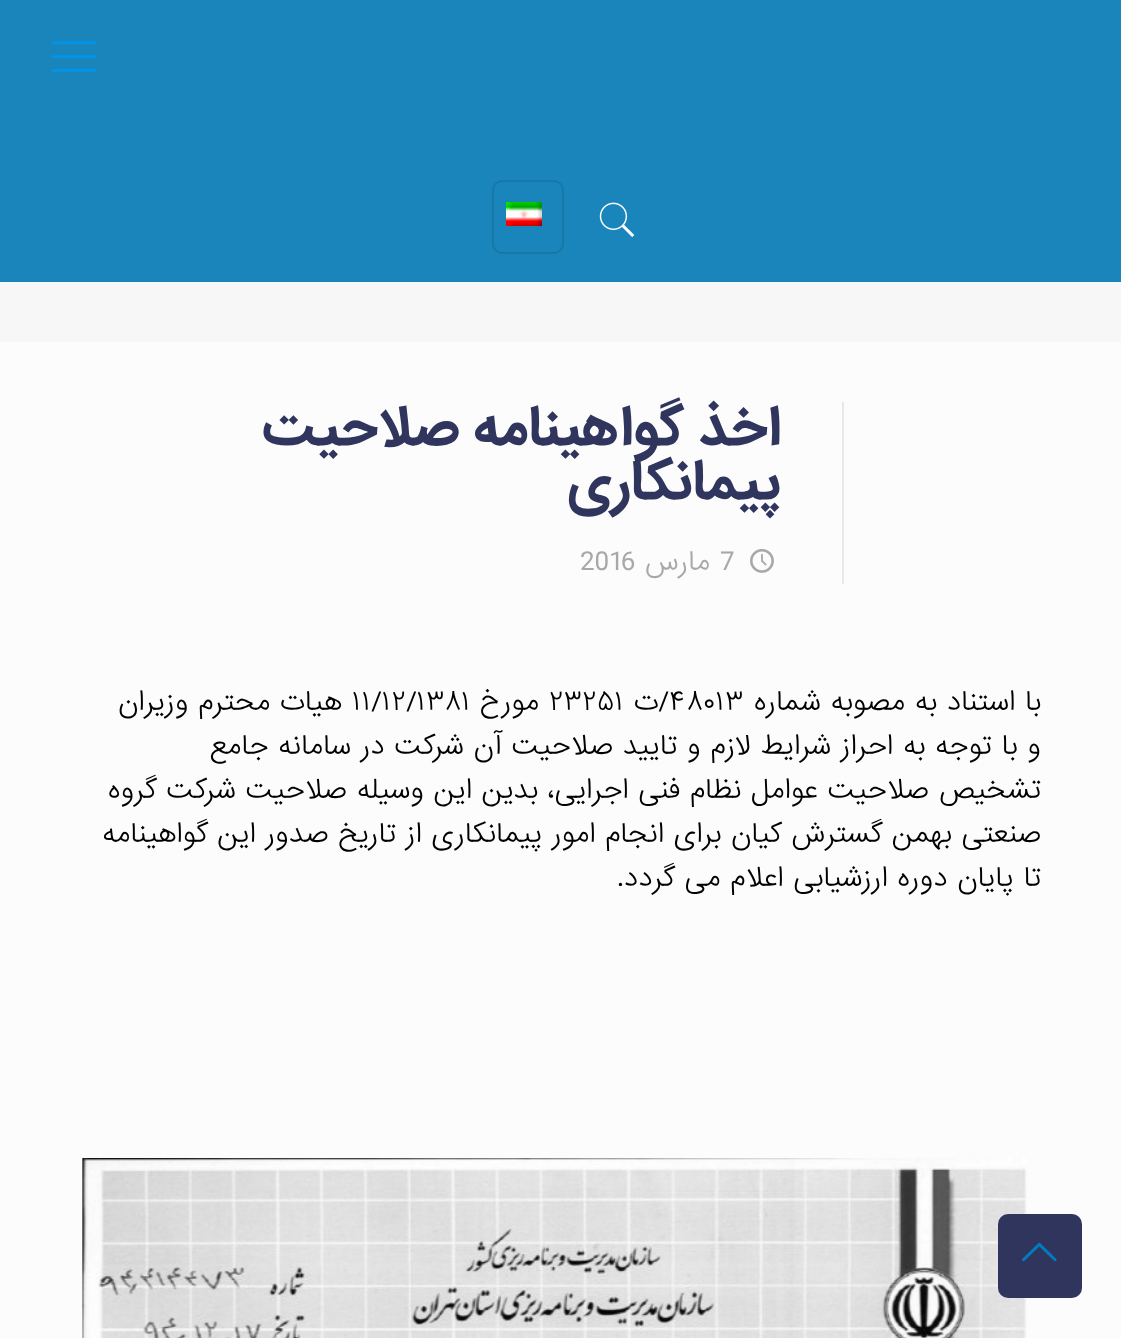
<svg xmlns="http://www.w3.org/2000/svg" width="1121" height="1338">
<rect width="100%" height="100%" fill="#fcfcfc"/>
<rect width="1121" height="282" fill="#1a85ba"/>
<image x="52" y="41" width="44" height="31" href="media/1.png"/>
<image x="599" y="202" width="36" height="36" href="media/2.png"/>
<rect x="493" y="181" width="70" height="72" rx="9" fill="none" stroke="#1778a7" stroke-width="2"/>
<image x="506" y="202" width="36" height="24" href="media/3.png"/>
<rect y="282" width="1121" height="60" fill="#f7f7f7"/>
<rect x="842" y="402" width="2" height="182" fill="#e8e8e8"/>
<text x="781" y="444" style="font-family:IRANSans;font-size:50px;font-weight:bold;direction:rtl;fill:#30355d">اخذ گواهینامه صلاحیت</text>
<text x="781" y="498" style="font-family:IRANSans;font-size:50px;font-weight:bold;direction:rtl;fill:#30355d">پیمانکاری</text>
<image x="750" y="549" width="24" height="24" href="media/4.png"/>
<text x="720" y="570" style="font-family:IRANSans;font-size:26px;font-weight:300;fill:#a8a8a8">7</text>
<text x="710" y="570" style="font-family:IRANSans;font-size:26px;font-weight:300;direction:rtl;fill:#a8a8a8">مارس</text>
<text x="580" y="570" style="font-family:IRANSans;font-size:26px;font-weight:300;fill:#a8a8a8">2016</text>
<text x="1041" y="710" style="font-family:IRANSans;font-size:26px;font-weight:300;direction:rtl;fill:#000">با استناد به مصوبه شماره</text>
<text x="669" y="710" style="font-family:IRANSans;font-size:26px;font-weight:300;fill:#000">۴۸۰۱۳</text>
<text x="669" y="710" style="font-family:IRANSans;font-size:26px;font-weight:300;direction:rtl;fill:#000">/ت</text>
<text x="549" y="710" style="font-family:IRANSans;font-size:26px;font-weight:300;fill:#000">۲۳۲۵۱</text>
<text x="539" y="710" style="font-family:IRANSans;font-size:26px;font-weight:300;direction:rtl;fill:#000">مورخ</text>
<text x="352" y="710" style="font-family:IRANSans;font-size:26px;font-weight:300;fill:#000">۱۱/۱۲/۱۳۸۱</text>
<text x="342" y="710" style="font-family:IRANSans;font-size:26px;font-weight:300;direction:rtl;fill:#000">هیات محترم وزیران</text>
<text x="1041" y="754" style="font-family:IRANSans;font-size:26px;font-weight:300;direction:rtl;fill:#000">و با توجه به احراز شرایط لازم و تایید صلاحیت آن شرکت در سامانه جامع</text>
<text x="1041" y="798" style="font-family:IRANSans;font-size:26px;font-weight:300;direction:rtl;fill:#000">تشخیص صلاحیت عوامل نظام فنی اجرایی، بدین این وسیله صلاحیت شرکت گروه</text>
<text x="1041" y="842" style="font-family:IRANSans;font-size:26px;font-weight:300;direction:rtl;fill:#000">صنعتی بهمن گسترش کیان برای انجام امور پیمانکاری از تاریخ صدور این گواهینامه</text>
<text x="1041" y="886" style="font-family:IRANSans;font-size:26px;font-weight:300;direction:rtl;fill:#000">تا پایان دوره ارزشیابی اعلام می گردد.</text>
<image x="82" y="1158" width="945" height="180" href="media/5.png"/>
<rect x="998" y="1214" width="84" height="84" rx="10" fill="#30355d"/>
<image x="1022" y="1242" width="35" height="20" href="media/6.png"/>
</svg>
